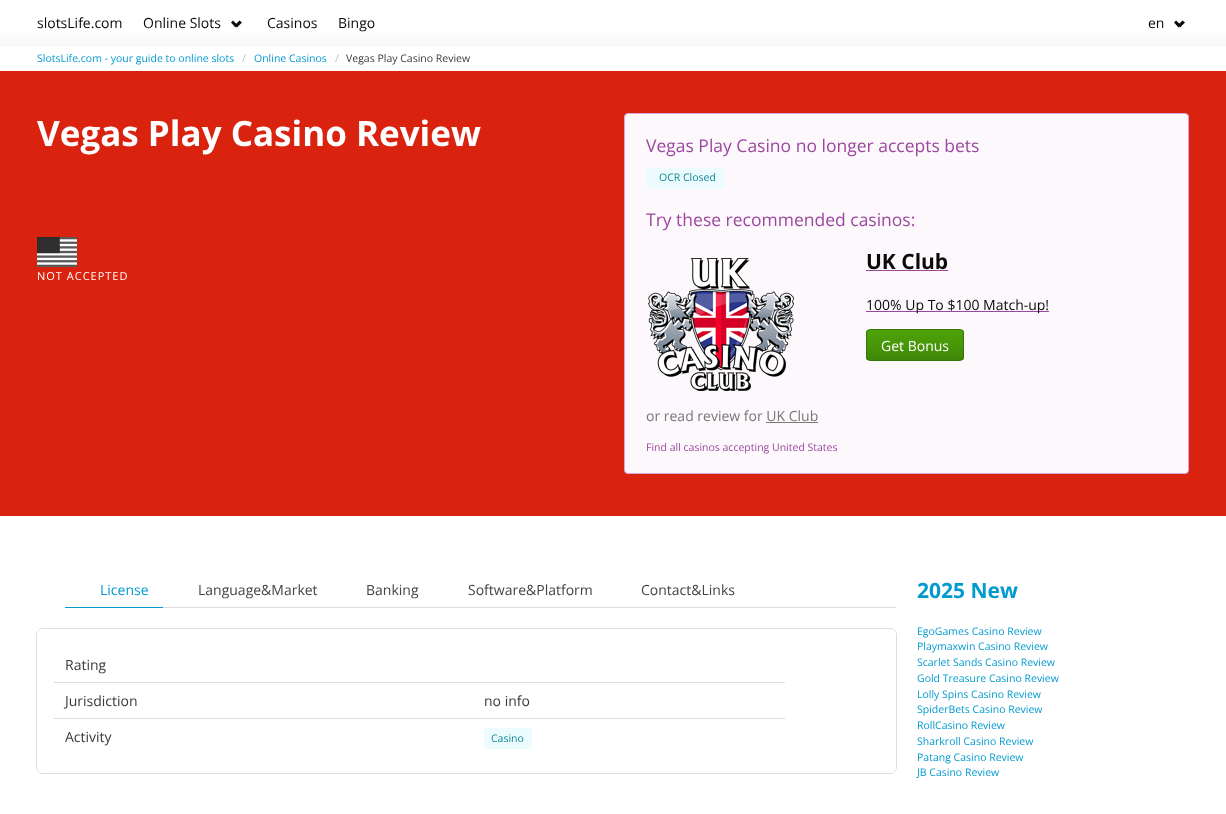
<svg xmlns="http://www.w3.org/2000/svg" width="1226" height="814">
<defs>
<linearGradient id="g1" gradientUnits="userSpaceOnUse" x1="613" y1="0" x2="613" y2="46"><stop offset="0" stop-color="#fff"/><stop offset="0.6" stop-color="#fff"/><stop offset="1" stop-color="#f7f7f7"/></linearGradient>
<clipPath id="clip1"><rect x="866" y="329" width="98" height="32" rx="4"/></clipPath>
<linearGradient id="g2" gradientUnits="userSpaceOnUse" x1="915" y1="330" x2="915" y2="360"><stop offset="0" stop-color="#4da309"/><stop offset="0.6" stop-color="#469408"/><stop offset="1" stop-color="#3f8507"/></linearGradient>
</defs>
<rect width="100%" height="100%" fill="#fff"/>
<rect y="33" width="1226" height="13" fill="url(#g1)"/>
<text x="37" y="28" style="font-family:Open Sans;font-size:14px;fill:#0a0a0a">slotsLife.com</text>
<text x="143" y="28" style="font-family:Open Sans;font-size:14px;fill:#0a0a0a">Online Slots</text>
<path d="M235 25l4.5-4.5l2.5 2l-5 5z" fill="#0a0a0a"/>
<path d="M231 22.5l2-2l4.5 4.5l-2 2.5z" fill="#0a0a0a"/>
<text x="267" y="28" style="font-family:Open Sans;font-size:14px;fill:#0a0a0a">Casinos</text>
<text x="338" y="28" style="font-family:Open Sans;font-size:14px;fill:#0a0a0a">Bingo</text>
<text x="1148" y="28" style="font-family:Open Sans;font-size:14px;fill:#0a0a0a">en</text>
<path d="M1178 25l4.5-4.5l2.5 2l-5 5z" fill="#0a0a0a"/>
<path d="M1174 22.5l2-2l5 4.5l-2.5 2.5z" fill="#0a0a0a"/>
<text x="37" y="62" style="font-family:Open Sans;font-size:10.5px;fill:#029acf">SlotsLife.com - your guide to online slots</text>
<text x="242" y="62" style="font-family:Open Sans;font-size:10.5px;fill:#bbb">/</text>
<text x="254" y="62" style="font-family:Open Sans;font-size:10.5px;fill:#029acf">Online Casinos</text>
<text x="335" y="62" style="font-family:Open Sans;font-size:10.5px;fill:#bbb">/</text>
<text x="346" y="62" style="font-family:Open Sans;font-size:10.5px;fill:#373a3c">Vegas Play Casino Review</text>
<rect y="71" width="1226" height="445" fill="#d9230f"/>
<text x="37" y="146" style="font-family:Open Sans;font-size:35px;font-weight:bold;fill:#fff">Vegas Play Casino Review</text>
<image x="37" y="237" width="40" height="30" href="media/1.png"/>
<text x="37" y="280" style="font-family:Open Sans;font-size:11px;letter-spacing:1px;fill:#fff">NOT ACCEPTED</text>
<rect x="624.5" y="113.5" width="564" height="360" rx="3.5" fill="#fcf8fc" stroke="#d6a7d8"/>
<text x="646" y="152" style="font-family:Open Sans;font-size:17.5px;fill:#9b479f">Vegas Play Casino no longer accepts bets</text>
<rect x="646" y="168" width="78" height="21" rx="4" fill="#ecfcfe"/>
<text x="659" y="181" style="font-family:Open Sans;font-size:10.5px;fill:#0a8694">OCR Closed</text>
<text x="646" y="226" style="font-family:Open Sans;font-size:17.5px;fill:#9b479f">Try these recommended casinos:</text>
<image x="648" y="258" width="146" height="133" href="media/2.png"/>
<text x="866" y="269" style="font-family:Open Sans;font-size:21px;font-weight:bold;fill:#0a0a0a">UK Club</text>
<rect x="866" y="270" width="82" height="1" fill="#9b479f"/>
<rect x="866" y="311" width="183" height="1" fill="#9b479f"/>
<text x="866" y="310" style="font-family:Open Sans;font-size:14px;fill:#0a0a0a">100% Up To $100 Match-up!</text>
<g clip-path="url(#clip1)">
<rect x="866" y="330" width="98" height="30" fill="url(#g2)"/>
</g>
<rect x="866.5" y="329.5" width="97" height="31" rx="3.5" fill="none" stroke="#377506"/>
<text x="881" y="351" style="font-family:Open Sans;font-size:14px;fill:#fff">Get Bonus</text>
<text x="646" y="421" style="font-family:Open Sans;font-size:14px;fill:#777">or read review for UK Club</text>
<rect x="766" y="422" width="52" height="1" fill="#777"/>
<text x="646" y="451" style="font-family:Open Sans;font-size:10.5px;fill:#9b479f">Find all casinos accepting United States</text>
<rect x="163" y="607" width="733" height="1" fill="#ddd"/>
<rect x="65" y="607" width="98" height="1" fill="#029acf"/>
<text x="100" y="595" style="font-family:Open Sans;font-size:14px;fill:#029acf">License</text>
<text x="198" y="595" style="font-family:Open Sans;font-size:14px;fill:#444">Language&amp;Market</text>
<text x="366" y="595" style="font-family:Open Sans;font-size:14px;fill:#444">Banking</text>
<text x="468" y="595" style="font-family:Open Sans;font-size:14px;fill:#444">Software&amp;Platform</text>
<text x="641" y="595" style="font-family:Open Sans;font-size:14px;fill:#444">Contact&amp;Links</text>
<rect x="36.5" y="628.5" width="860" height="145" rx="6.5" fill="none" stroke="#ddd"/>
<rect x="37" y="629" width="859" height="144" rx="6" fill="#fff"/>
<text x="65" y="670" style="font-family:Open Sans;font-size:14px;fill:#373a3c">Rating</text>
<rect x="54" y="682" width="731" height="1" fill="#ddd"/>
<text x="65" y="706" style="font-family:Open Sans;font-size:14px;fill:#373a3c">Jurisdiction</text>
<rect x="54" y="718" width="731" height="1" fill="#ddd"/>
<text x="484" y="706" style="font-family:Open Sans;font-size:14px;fill:#373a3c">no info</text>
<text x="65" y="742" style="font-family:Open Sans;font-size:14px;fill:#373a3c">Activity</text>
<rect x="484" y="728" width="48" height="21" rx="4" fill="#ecfcfe"/>
<text x="491" y="742" style="font-family:Open Sans;font-size:10.5px;fill:#0a8694">Casino</text>
<text x="917" y="598" style="font-family:Open Sans;font-size:21px;font-weight:bold;fill:#029acf">2025 New</text>
<text x="917" y="635" style="font-family:Open Sans;font-size:10.5px;fill:#029acf">EgoGames Casino Review</text>
<text x="917" y="650" style="font-family:Open Sans;font-size:10.5px;fill:#029acf">Playmaxwin Casino Review</text>
<text x="917" y="666" style="font-family:Open Sans;font-size:10.5px;fill:#029acf">Scarlet Sands Casino Review</text>
<text x="917" y="682" style="font-family:Open Sans;font-size:10.5px;fill:#029acf">Gold Treasure Casino Review</text>
<text x="917" y="698" style="font-family:Open Sans;font-size:10.5px;fill:#029acf">Lolly Spins Casino Review</text>
<text x="917" y="713" style="font-family:Open Sans;font-size:10.5px;fill:#029acf">SpiderBets Casino Review</text>
<text x="917" y="729" style="font-family:Open Sans;font-size:10.5px;fill:#029acf">RollCasino Review</text>
<text x="917" y="745" style="font-family:Open Sans;font-size:10.5px;fill:#029acf">Sharkroll Casino Review</text>
<text x="917" y="761" style="font-family:Open Sans;font-size:10.5px;fill:#029acf">Patang Casino Review</text>
<text x="917" y="776" style="font-family:Open Sans;font-size:10.5px;fill:#029acf">JB Casino Review</text>
</svg>
